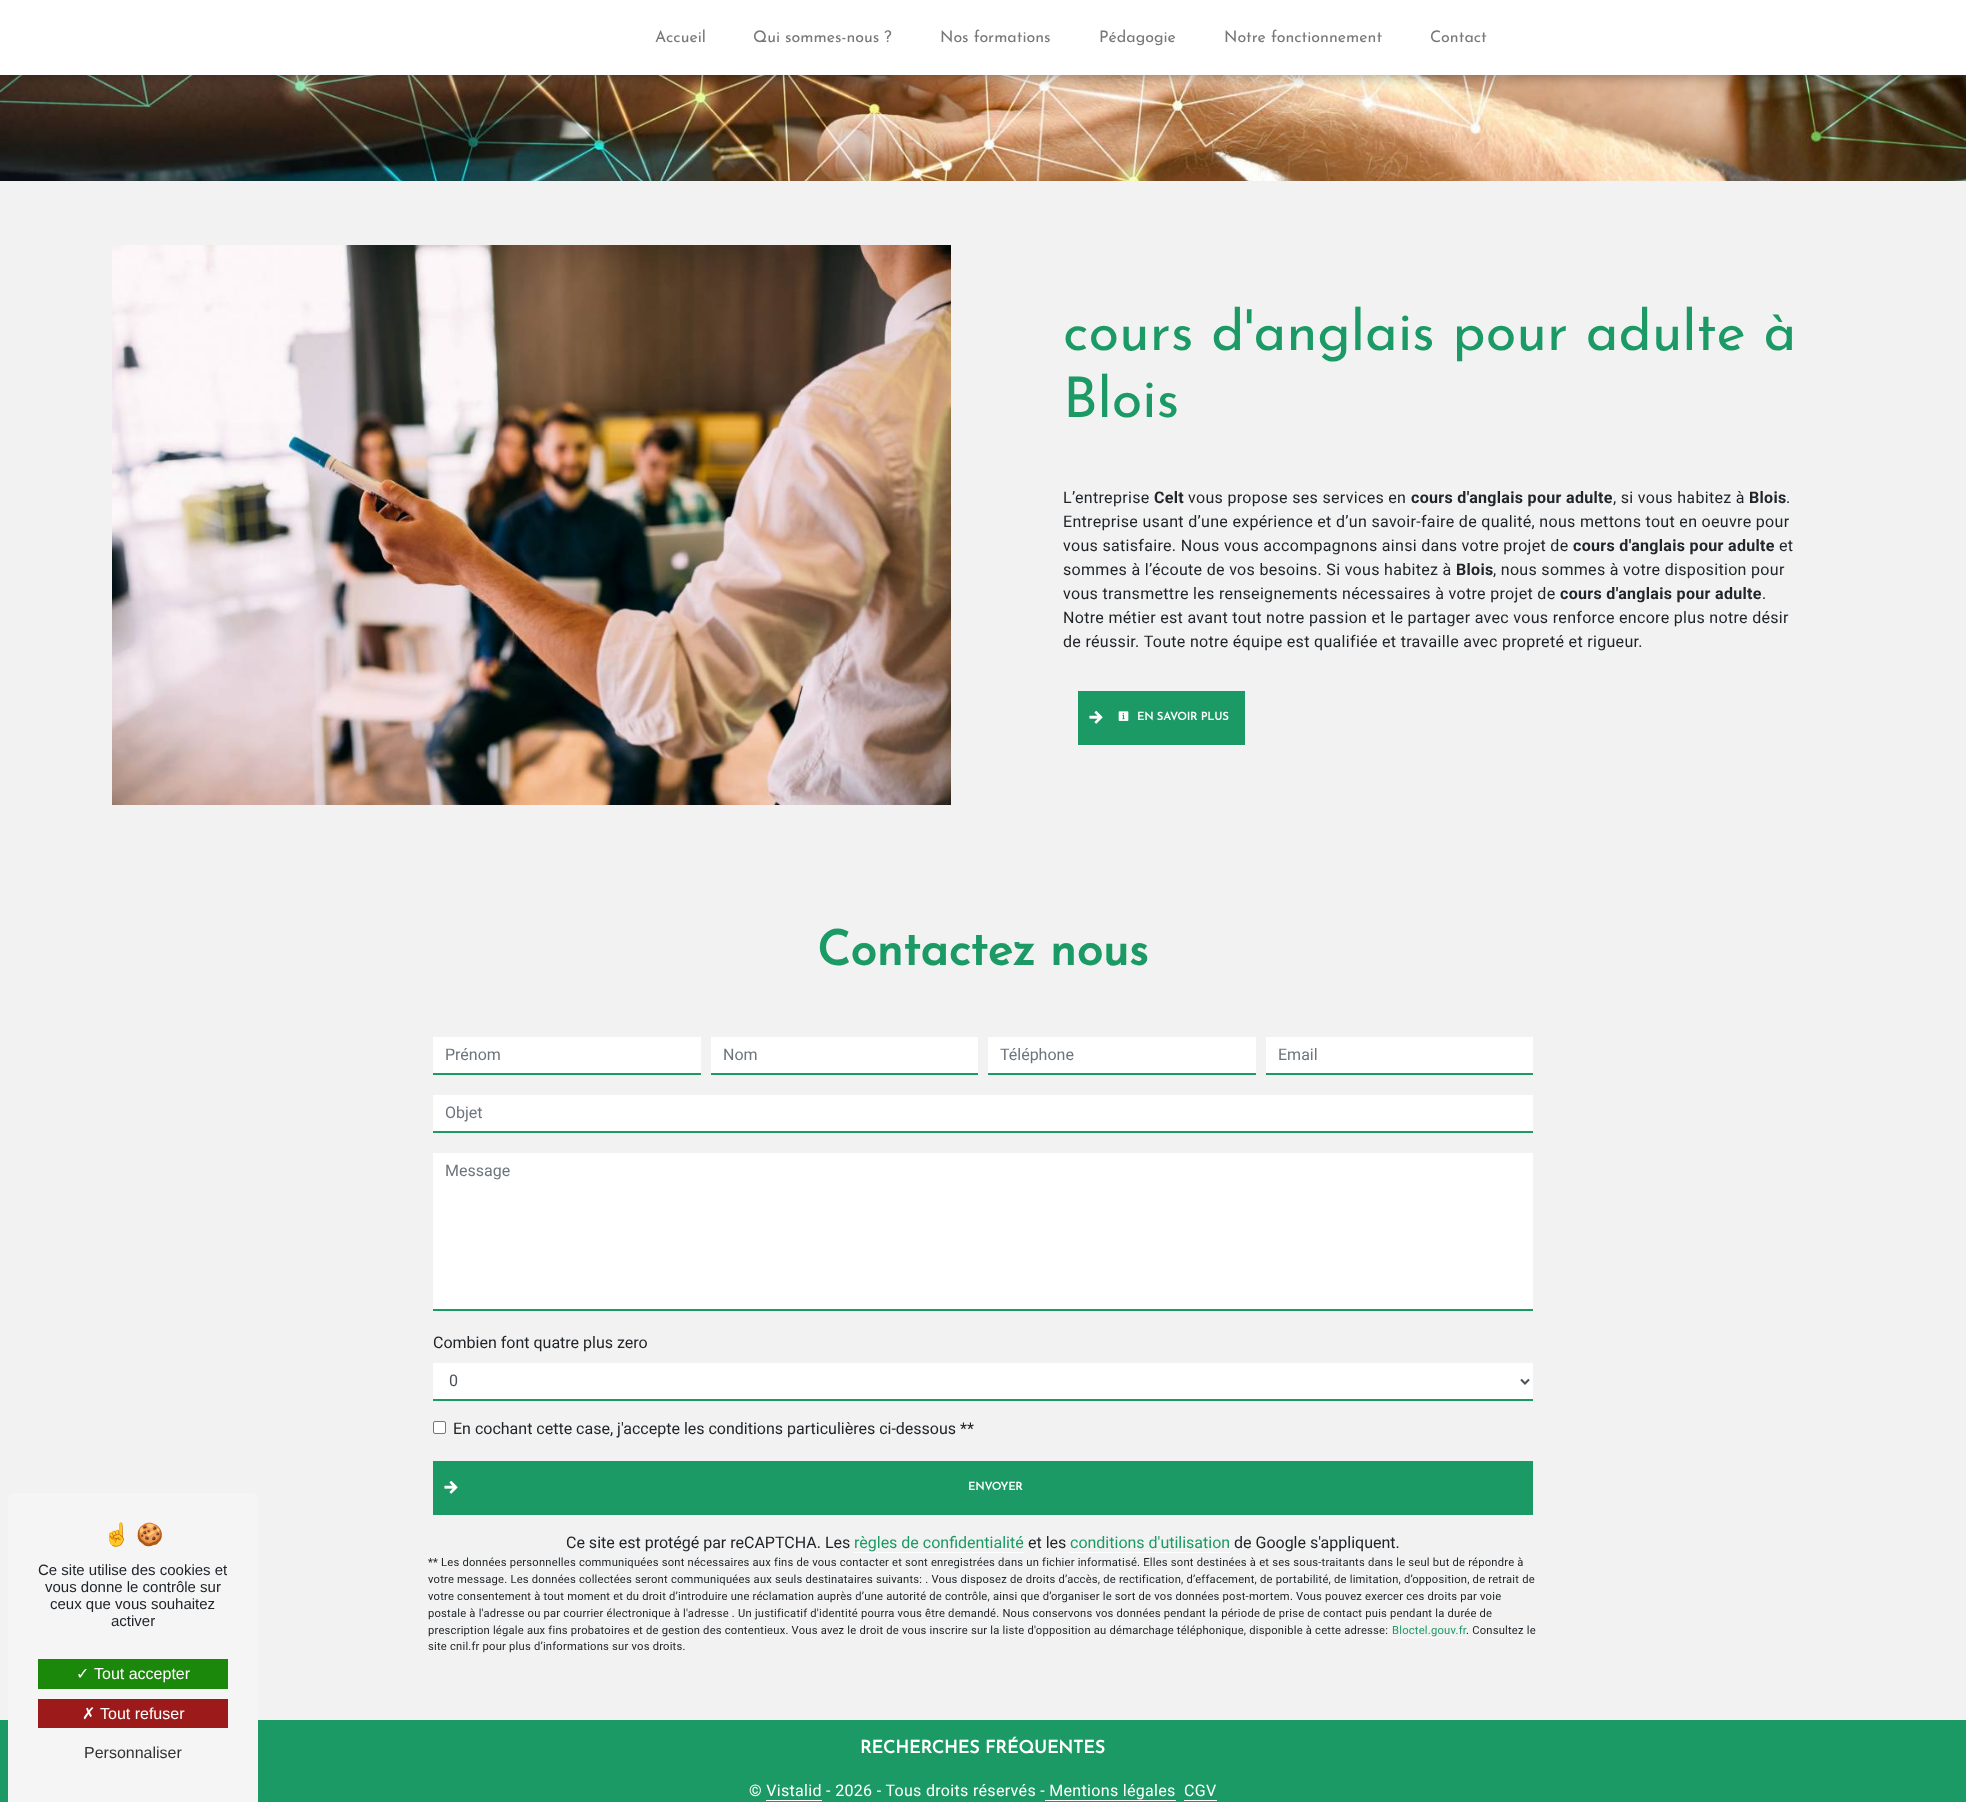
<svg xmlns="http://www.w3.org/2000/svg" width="1966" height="1802">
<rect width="100%" height="100%" fill="#f1f2f1"/>
<rect y="1720" width="1966" height="82" fill="#1b9a65"/>
<path d="M13 1493h240c3 0 5 2 5 5v304h-250v-304c0-3 2-5 5-5z" fill="#f5f5f5"/>
<text x="103" y="1542" style="font-family:Noto Color Emoji;font-size:22px;fill:#212529">☝</text>
<text x="136" y="1542" style="font-family:Noto Color Emoji;font-size:22px;fill:#212529">🍪</text>
<text x="38" y="1575" style="font-family:Liberation Sans;font-size:15px;fill:#212529">Ce site utilise des cookies et</text>
<text x="45" y="1592" style="font-family:Liberation Sans;font-size:15px;fill:#212529">vous donne le contrôle sur</text>
<text x="50" y="1609" style="font-family:Liberation Sans;font-size:15px;fill:#212529">ceux que vous souhaitez</text>
<text x="111" y="1626" style="font-family:Liberation Sans;font-size:15px;fill:#212529">activer</text>
<rect x="38" y="1659" width="190" height="30" fill="#1b870b"/>
<text x="76" y="1679" style="font-family:DejaVu Sans;font-size:16px;fill:#fff">✓</text>
<text x="94" y="1679" style="font-family:Liberation Sans;font-size:16px;fill:#fff">Tout accepter</text>
<rect x="38" y="1699" width="190" height="29" fill="#9c1a1a"/>
<text x="82" y="1719" style="font-family:DejaVu Sans;font-size:16px;fill:#fff">✗</text>
<text x="100" y="1719" style="font-family:Liberation Sans;font-size:16px;fill:#fff">Tout refuser</text>
<text x="84" y="1758" style="font-family:Liberation Sans;font-size:16px;fill:#333">Personnaliser</text>
<image x="0" y="75" width="1966" height="106" href="media/1.png"/>
<rect x="2" y="2" width="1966" height="75" fill="#0000004d" filter="blur(6px)"/>
<rect width="1966" height="75" fill="#fff"/>
<text x="655" y="42" style="font-family:Josefin Sans;font-size:16px;font-weight:100;fill:#787878">Accueil</text>
<text x="753" y="42" style="font-family:Josefin Sans;font-size:16px;font-weight:100;fill:#787878">Qui sommes-nous ?</text>
<text x="940" y="42" style="font-family:Josefin Sans;font-size:16px;font-weight:100;fill:#787878">Nos formations</text>
<text x="1099" y="42" style="font-family:Josefin Sans;font-size:16px;font-weight:100;fill:#787878">Pédagogie</text>
<text x="1224" y="42" style="font-family:Josefin Sans;font-size:16px;font-weight:100;fill:#787878">Notre fonctionnement</text>
<text x="1430" y="42" style="font-family:Josefin Sans;font-size:16px;font-weight:100;fill:#787878">Contact</text>
<image x="112" y="245" width="839" height="560" href="media/2.png"/>
<text x="1063" y="350" style="font-family:Josefin Sans;font-size:56px;font-weight:100;fill:#1b9a65">cours d'anglais pour adulte à</text>
<text x="1063" y="417" style="font-family:Josefin Sans;font-size:56px;font-weight:100;fill:#1b9a65">Blois</text>
<text x="1063" y="503" style="font-family:Roboto;font-size:16px;letter-spacing:0.32px;fill:#212529">L’entreprise</text>
<text x="1154" y="503" style="font-family:Roboto;font-size:16px;font-weight:bold;letter-spacing:0.32px;fill:#212529">Celt</text>
<text x="1188" y="503" style="font-family:Roboto;font-size:16px;letter-spacing:0.32px;fill:#212529">vous propose ses services en</text>
<text x="1411" y="503" style="font-family:Roboto;font-size:16px;font-weight:bold;letter-spacing:0.32px;fill:#212529">cours d'anglais pour adulte</text>
<text x="1613" y="503" style="font-family:Roboto;font-size:16px;letter-spacing:0.32px;fill:#212529">, si vous habitez à</text>
<text x="1749" y="503" style="font-family:Roboto;font-size:16px;font-weight:bold;letter-spacing:0.32px;fill:#212529">Blois</text>
<text x="1786" y="503" style="font-family:Roboto;font-size:16px;letter-spacing:0.32px;fill:#212529">.</text>
<text x="1063" y="527" style="font-family:Roboto;font-size:16px;letter-spacing:0.32px;fill:#212529">Entreprise usant d’une expérience et d’un savoir-faire de qualité, nous mettons tout en oeuvre pour</text>
<text x="1063" y="551" style="font-family:Roboto;font-size:16px;letter-spacing:0.32px;fill:#212529">vous satisfaire. Nous vous accompagnons ainsi dans votre projet de</text>
<text x="1573" y="551" style="font-family:Roboto;font-size:16px;font-weight:bold;letter-spacing:0.32px;fill:#212529">cours d'anglais pour adulte</text>
<text x="1779" y="551" style="font-family:Roboto;font-size:16px;letter-spacing:0.32px;fill:#212529">et</text>
<text x="1063" y="575" style="font-family:Roboto;font-size:16px;letter-spacing:0.32px;fill:#212529">sommes à l’écoute de vos besoins. Si vous habitez à</text>
<text x="1456" y="575" style="font-family:Roboto;font-size:16px;font-weight:bold;letter-spacing:0.32px;fill:#212529">Blois</text>
<text x="1493" y="575" style="font-family:Roboto;font-size:16px;letter-spacing:0.32px;fill:#212529">, nous sommes à votre disposition pour</text>
<text x="1063" y="599" style="font-family:Roboto;font-size:16px;letter-spacing:0.32px;fill:#212529">vous transmettre les renseignements nécessaires à votre projet de</text>
<text x="1560" y="599" style="font-family:Roboto;font-size:16px;font-weight:bold;letter-spacing:0.32px;fill:#212529">cours d'anglais pour adulte</text>
<text x="1762" y="599" style="font-family:Roboto;font-size:16px;letter-spacing:0.32px;fill:#212529">.</text>
<text x="1063" y="623" style="font-family:Roboto;font-size:16px;letter-spacing:0.32px;fill:#212529">Notre métier est avant tout notre passion et le partager avec vous renforce encore plus notre désir</text>
<text x="1063" y="647" style="font-family:Roboto;font-size:16px;letter-spacing:0.32px;fill:#212529">de réussir. Toute notre équipe est qualifiée et travaille avec propreté et rigueur.</text>
<rect x="1078" y="691" width="167" height="54" fill="#1b9a65"/>
<rect x="1078" y="745" width="167" height="1" fill="#fff"/>
<image x="1089" y="710" width="14" height="14" href="media/3.png"/>
<image x="1118" y="711" width="11" height="10" href="media/4.png"/>
<text x="1137" y="720" style="font-family:Josefin Sans;font-size:11px;font-weight:bold;fill:#fff">EN SAVOIR PLUS</text>
<text x="817" y="965" style="font-family:Josefin Sans;font-size:48px;font-weight:bold;fill:#1b9a65">Contactez nous</text>
<rect x="433" y="1037" width="268" height="36" fill="#fff"/>
<rect x="433" y="1073" width="268" height="2" fill="#1b9a65"/>
<text x="445" y="1060" style="font-family:Roboto;font-size:16px;fill:#6c757d">Prénom</text>
<rect x="711" y="1037" width="267" height="36" fill="#fff"/>
<rect x="711" y="1073" width="267" height="2" fill="#1b9a65"/>
<text x="723" y="1060" style="font-family:Roboto;font-size:16px;fill:#6c757d">Nom</text>
<rect x="988" y="1037" width="268" height="36" fill="#fff"/>
<rect x="988" y="1073" width="268" height="2" fill="#1b9a65"/>
<text x="1000" y="1060" style="font-family:Roboto;font-size:16px;fill:#6c757d">Téléphone</text>
<rect x="1266" y="1037" width="267" height="36" fill="#fff"/>
<rect x="1266" y="1073" width="267" height="2" fill="#1b9a65"/>
<text x="1278" y="1060" style="font-family:Roboto;font-size:16px;fill:#6c757d">Email</text>
<rect x="433" y="1095" width="1100" height="36" fill="#fff"/>
<rect x="433" y="1131" width="1100" height="2" fill="#1b9a65"/>
<text x="445" y="1118" style="font-family:Roboto;font-size:16px;fill:#6c757d">Objet</text>
<rect x="433" y="1153" width="1100" height="156" fill="#fff"/>
<rect x="433" y="1309" width="1100" height="2" fill="#1b9a65"/>
<text x="445" y="1176" style="font-family:Roboto;font-size:16px;fill:#6c757d">Message</text>
<text x="433" y="1348" style="font-family:Roboto;font-size:16px;fill:#212529">Combien font quatre plus zero</text>
<rect x="433" y="1363" width="1100" height="36" fill="#fff"/>
<rect x="433" y="1399" width="1100" height="2" fill="#1b9a65"/>
<path d="M1521 1379.5l4 4l4-4" fill="none" stroke="#495057" stroke-width="2"/>
<text x="449" y="1386" style="font-family:Roboto;font-size:16px;fill:#495057">0</text>
<rect x="433.5" y="1421.5" width="12" height="12" rx="1.5" fill="#fff" stroke="#767676"/>
<text x="453" y="1434" style="font-family:Roboto;font-size:16px;fill:#212529">En cochant cette case, j'accepte les conditions particulières ci-dessous **</text>
<rect x="433" y="1461" width="1100" height="54" fill="#1b9a65"/>
<image x="444" y="1480" width="14" height="14" href="media/3.png"/>
<text x="968" y="1490" style="font-family:Josefin Sans;font-size:11px;font-weight:bold;fill:#fff">ENVOYER</text>
<text x="566" y="1548" style="font-family:Roboto;font-size:16px;fill:#212529">Ce site est protégé par reCAPTCHA. Les</text>
<text x="854" y="1548" style="font-family:Roboto;font-size:16px;fill:#1b9a65">règles de confidentialité</text>
<rect x="854" y="1552" width="170" height="1" fill="#fff"/>
<text x="1028" y="1548" style="font-family:Roboto;font-size:16px;fill:#212529">et les</text>
<text x="1070" y="1548" style="font-family:Roboto;font-size:16px;fill:#1b9a65">conditions d'utilisation</text>
<rect x="1070" y="1552" width="160" height="1" fill="#fff"/>
<text x="1234" y="1548" style="font-family:Roboto;font-size:16px;fill:#212529">de Google s'appliquent.</text>
<text x="428" y="1566" style="font-family:Roboto;font-size:11.2px;letter-spacing:0.22px;fill:#212529">** Les données personnelles communiquées sont nécessaires aux fins de vous contacter et sont enregistrées dans un fichier informatisé. Elles sont destinées à et ses sous-traitants dans le seul but de répondre à</text>
<text x="428" y="1583" style="font-family:Roboto;font-size:11.2px;letter-spacing:0.22px;fill:#212529">votre message. Les données collectées seront communiquées aux seuls destinataires suivants: . Vous disposez de droits d’accès, de rectification, d’effacement, de portabilité, de limitation, d’opposition, de retrait de</text>
<text x="428" y="1600" style="font-family:Roboto;font-size:11.2px;letter-spacing:0.22px;fill:#212529">votre consentement à tout moment et du droit d’introduire une réclamation auprès d’une autorité de contrôle, ainsi que d’organiser le sort de vos données post-mortem. Vous pouvez exercer ces droits par voie</text>
<text x="428" y="1617" style="font-family:Roboto;font-size:11.2px;letter-spacing:0.22px;fill:#212529">postale à l'adresse ou par courrier électronique à l'adresse . Un justificatif d'identité pourra vous être demandé. Nous conservons vos données pendant la période de prise de contact puis pendant la durée de</text>
<text x="428" y="1634" style="font-family:Roboto;font-size:11.2px;letter-spacing:0.22px;fill:#212529">prescription légale aux fins probatoires et de gestion des contentieux. Vous avez le droit de vous inscrire sur la liste d'opposition au démarchage téléphonique, disponible à cette adresse:</text>
<text x="1392" y="1634" style="font-family:Roboto;font-size:11.2px;letter-spacing:0.22px;fill:#1b9a65">Bloctel.gouv.fr</text>
<rect x="1392" y="1637" width="74" height="1" fill="#fff"/>
<text x="1466" y="1634" style="font-family:Roboto;font-size:11.2px;letter-spacing:0.22px;fill:#212529">. Consultez le</text>
<text x="428" y="1650" style="font-family:Roboto;font-size:11.2px;letter-spacing:0.22px;fill:#212529">site cnil.fr pour plus d’informations sur vos droits.</text>
<text x="860" y="1753" style="font-family:Josefin Sans;font-size:17.6px;font-weight:bold;fill:#fff">RECHERCHES FRÉQUENTES</text>
<text x="749" y="1796" style="font-family:Roboto;font-size:16px;letter-spacing:0.32px;fill:#fff">© Vistalid - 2026 - Tous droits réservés - Mentions légales</text>
<text x="1184" y="1796" style="font-family:Roboto;font-size:16px;letter-spacing:0.32px;fill:#fff">CGV</text>
<rect x="1184" y="1800" width="33" height="1" fill="#fff"/>
<rect x="766" y="1800" width="56" height="1" fill="#fff"/>
<rect x="1045" y="1800" width="131" height="1" fill="#fff"/>
</svg>
